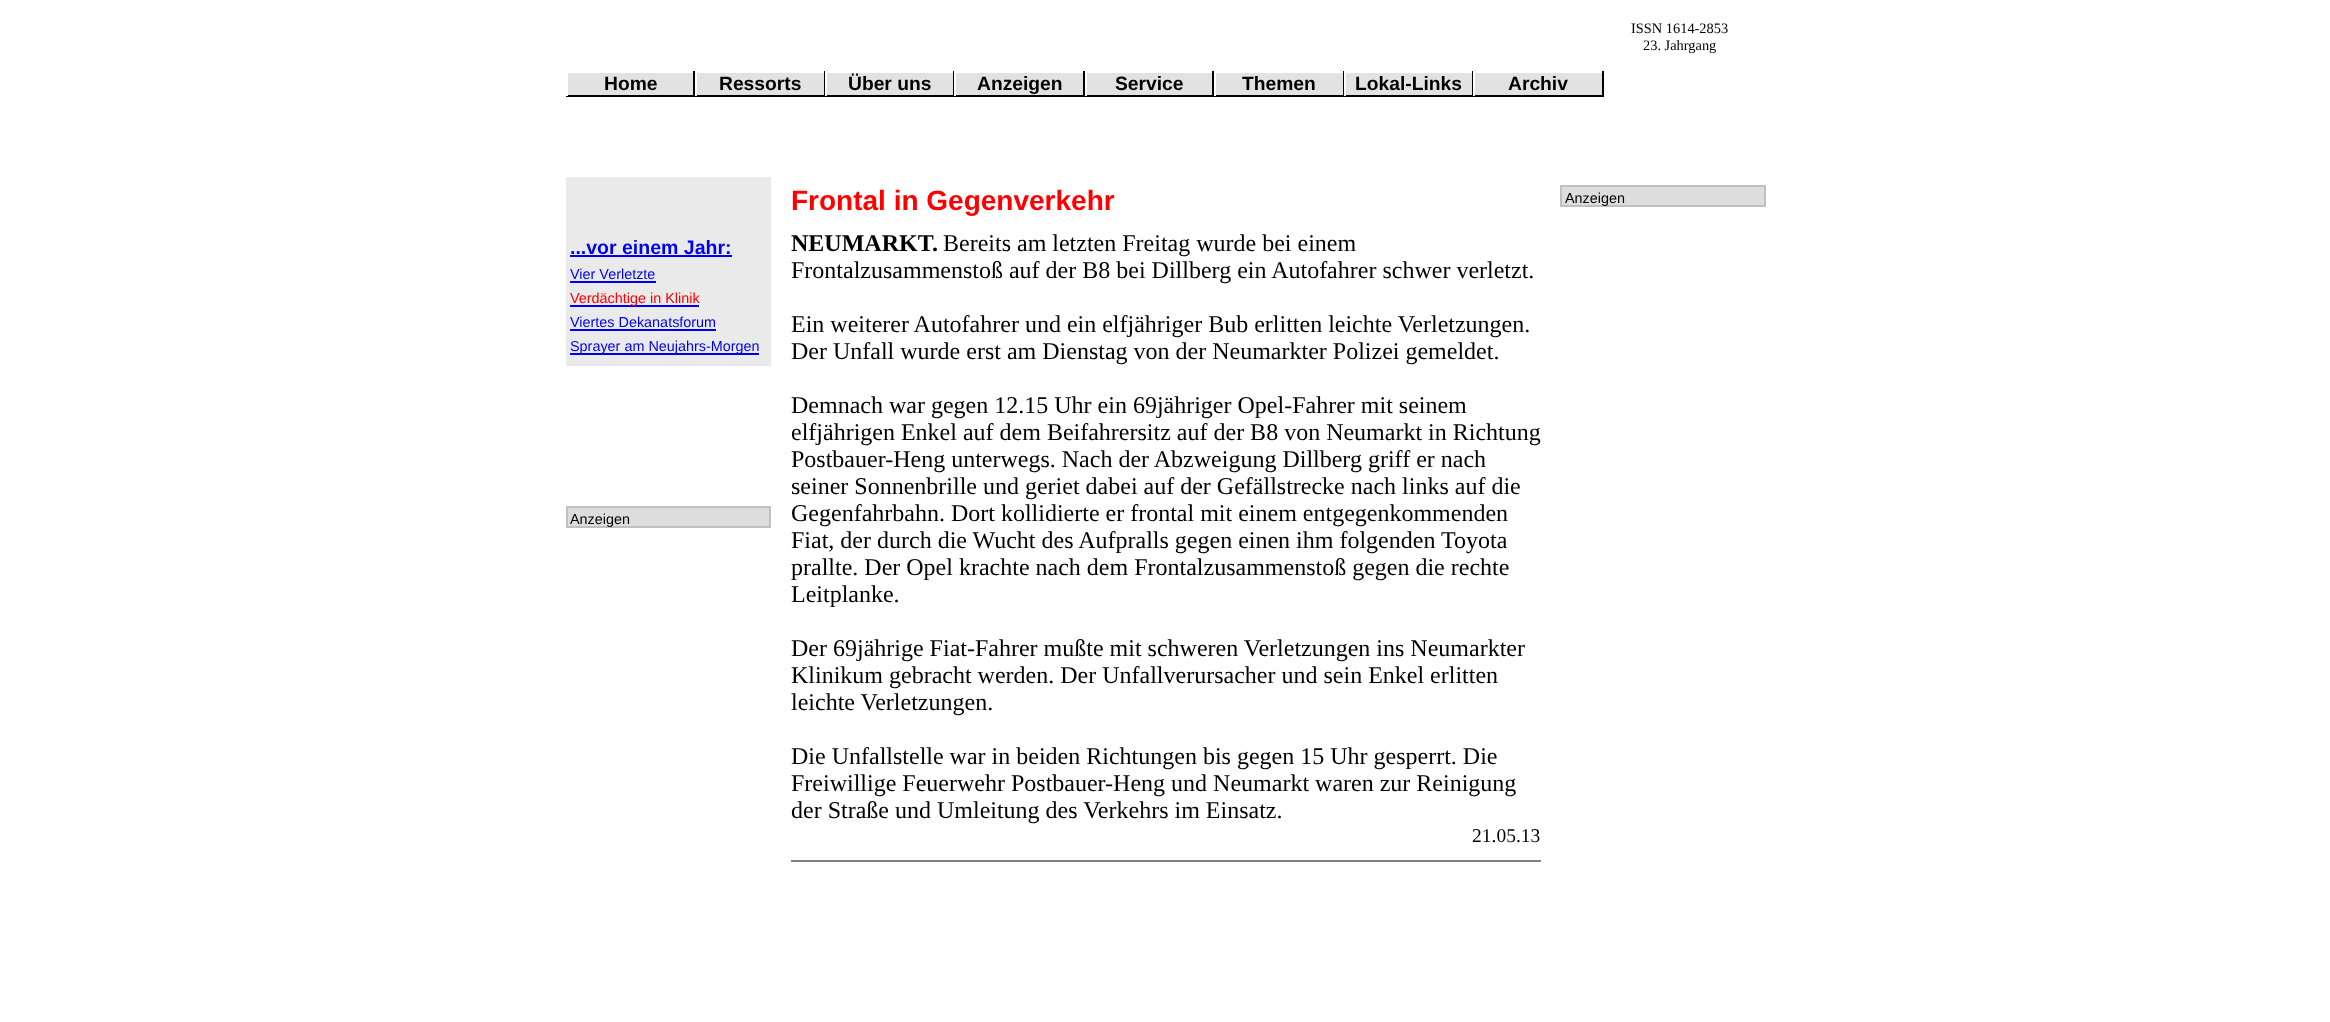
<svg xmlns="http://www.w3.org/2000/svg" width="2330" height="1022">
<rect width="100%" height="100%" fill="#fff"/>
<text x="1631" y="33" style="font-family:Liberation Serif;font-size:14.4px;fill:#000">ISSN 1614-2853</text>
<text x="1643" y="50" style="font-family:Liberation Serif;font-size:14.4px;fill:#000">23. Jahrgang</text>
<rect x="568" y="73" width="125" height="22" fill="#e2e2e2"/>
<rect x="693" y="71" width="2" height="25" fill="#000"/>
<rect x="566" y="95" width="129" height="2" fill="#000"/>
<rect x="566" y="95" width="2" height="1" fill="#fff"/>
<text x="604" y="90" style="font-family:Liberation Sans;font-size:19.25px;font-weight:bold;fill:#000">Home</text>
<rect x="697" y="73" width="127" height="22" fill="#e2e2e2"/>
<rect x="824" y="71" width="1" height="25" fill="#000"/>
<rect x="695" y="95" width="130" height="2" fill="#000"/>
<rect x="695" y="95" width="2" height="1" fill="#fff"/>
<text x="719" y="90" style="font-family:Liberation Sans;font-size:19.25px;font-weight:bold;fill:#000">Ressorts</text>
<rect x="827" y="73" width="126" height="22" fill="#e2e2e2"/>
<rect x="953" y="71" width="1" height="25" fill="#000"/>
<rect x="825" y="95" width="129" height="2" fill="#000"/>
<rect x="825" y="95" width="2" height="1" fill="#fff"/>
<text x="848" y="90" style="font-family:Liberation Sans;font-size:19.25px;font-weight:bold;fill:#000">Über uns</text>
<rect x="956" y="73" width="127" height="22" fill="#e2e2e2"/>
<rect x="1083" y="71" width="2" height="25" fill="#000"/>
<rect x="954" y="95" width="131" height="2" fill="#000"/>
<rect x="954" y="95" width="2" height="1" fill="#fff"/>
<text x="977" y="90" style="font-family:Liberation Sans;font-size:19.25px;font-weight:bold;fill:#000">Anzeigen</text>
<rect x="1087" y="73" width="125" height="22" fill="#e2e2e2"/>
<rect x="1212" y="71" width="2" height="25" fill="#000"/>
<rect x="1085" y="95" width="129" height="2" fill="#000"/>
<rect x="1085" y="95" width="2" height="1" fill="#fff"/>
<text x="1115" y="90" style="font-family:Liberation Sans;font-size:19.25px;font-weight:bold;fill:#000">Service</text>
<rect x="1216" y="73" width="127" height="22" fill="#e2e2e2"/>
<rect x="1343" y="71" width="1" height="25" fill="#000"/>
<rect x="1214" y="95" width="130" height="2" fill="#000"/>
<rect x="1214" y="95" width="2" height="1" fill="#fff"/>
<text x="1242" y="90" style="font-family:Liberation Sans;font-size:19.25px;font-weight:bold;fill:#000">Themen</text>
<rect x="1346" y="73" width="126" height="22" fill="#e2e2e2"/>
<rect x="1472" y="71" width="1" height="25" fill="#000"/>
<rect x="1344" y="95" width="129" height="2" fill="#000"/>
<rect x="1344" y="95" width="2" height="1" fill="#fff"/>
<text x="1355" y="90" style="font-family:Liberation Sans;font-size:19.25px;font-weight:bold;fill:#000">Lokal-Links</text>
<rect x="1475" y="73" width="127" height="22" fill="#e2e2e2"/>
<rect x="1602" y="71" width="2" height="25" fill="#000"/>
<rect x="1473" y="95" width="131" height="2" fill="#000"/>
<rect x="1473" y="95" width="2" height="1" fill="#fff"/>
<text x="1508" y="90" style="font-family:Liberation Sans;font-size:19.25px;font-weight:bold;fill:#000">Archiv</text>
<text x="791" y="210" style="font-family:Liberation Sans;font-size:28px;font-weight:bold;fill:#f00">Frontal in Gegenverkehr</text>
<text x="791" y="251" style="font-family:Liberation Serif;font-size:24px;font-weight:bold;fill:#000">NEUMARKT.</text>
<text x="943" y="251" style="font-family:Liberation Serif;font-size:24px;fill:#000">Bereits am letzten Freitag wurde bei einem</text>
<text x="791" y="278" style="font-family:Liberation Serif;font-size:24px;fill:#000">Frontalzusammenstoß auf der B8 bei Dillberg ein Autofahrer schwer verletzt.</text>
<text x="791" y="332" style="font-family:Liberation Serif;font-size:24px;fill:#000">Ein weiterer Autofahrer und ein elfjähriger Bub erlitten leichte Verletzungen.</text>
<text x="791" y="359" style="font-family:Liberation Serif;font-size:24px;fill:#000">Der Unfall wurde erst am Dienstag von der Neumarkter Polizei gemeldet.</text>
<text x="791" y="413" style="font-family:Liberation Serif;font-size:24px;fill:#000">Demnach war gegen 12.15 Uhr ein 69jähriger Opel-Fahrer mit seinem</text>
<text x="791" y="440" style="font-family:Liberation Serif;font-size:24px;fill:#000">elfjährigen Enkel auf dem Beifahrersitz auf der B8 von Neumarkt in Richtung</text>
<text x="791" y="467" style="font-family:Liberation Serif;font-size:24px;fill:#000">Postbauer-Heng unterwegs. Nach der Abzweigung Dillberg griff er nach</text>
<text x="791" y="494" style="font-family:Liberation Serif;font-size:24px;fill:#000">seiner Sonnenbrille und geriet dabei auf der Gefällstrecke nach links auf die</text>
<text x="791" y="521" style="font-family:Liberation Serif;font-size:24px;fill:#000">Gegenfahrbahn. Dort kollidierte er frontal mit einem entgegenkommenden</text>
<text x="791" y="548" style="font-family:Liberation Serif;font-size:24px;fill:#000">Fiat, der durch die Wucht des Aufpralls gegen einen ihm folgenden Toyota</text>
<text x="791" y="575" style="font-family:Liberation Serif;font-size:24px;fill:#000">prallte. Der Opel krachte nach dem Frontalzusammenstoß gegen die rechte</text>
<text x="791" y="602" style="font-family:Liberation Serif;font-size:24px;fill:#000">Leitplanke.</text>
<text x="791" y="656" style="font-family:Liberation Serif;font-size:24px;fill:#000">Der 69jährige Fiat-Fahrer mußte mit schweren Verletzungen ins Neumarkter</text>
<text x="791" y="683" style="font-family:Liberation Serif;font-size:24px;fill:#000">Klinikum gebracht werden. Der Unfallverursacher und sein Enkel erlitten</text>
<text x="791" y="710" style="font-family:Liberation Serif;font-size:24px;fill:#000">leichte Verletzungen.</text>
<text x="791" y="764" style="font-family:Liberation Serif;font-size:24px;fill:#000">Die Unfallstelle war in beiden Richtungen bis gegen 15 Uhr gesperrt. Die</text>
<text x="791" y="791" style="font-family:Liberation Serif;font-size:24px;fill:#000">Freiwillige Feuerwehr Postbauer-Heng und Neumarkt waren zur Reinigung</text>
<text x="791" y="818" style="font-family:Liberation Serif;font-size:24px;fill:#000">der Straße und Umleitung des Verkehrs im Einsatz.</text>
<text x="1472" y="842" style="font-family:Liberation Serif;font-size:19.5px;fill:#000">21.05.13</text>
<rect x="791" y="860" width="750" height="2" fill="#808080"/>
<rect x="1561" y="186" width="204" height="20" fill="#ddd" stroke="#c0c0c0" stroke-width="2"/>
<text x="1565" y="203" style="font-family:Liberation Sans;font-size:14.4px;fill:#000">Anzeigen</text>
<rect x="566" y="177" width="205" height="189" fill="#eaeaea"/>
<text x="570" y="254" style="font-family:Liberation Sans;font-size:19.5px;font-weight:bold;fill:#00e">...vor einem Jahr:</text>
<rect x="570" y="255" width="162" height="2" fill="#00e"/>
<text x="570" y="279" style="font-family:Liberation Sans;font-size:14.4px;fill:#00e">Vier Verletzte</text>
<rect x="570" y="281" width="86" height="2" fill="#00e"/>
<rect x="570" y="305" width="129" height="2" fill="#00e"/>
<text x="570" y="303" style="font-family:Liberation Sans;font-size:14.4px;fill:#f00">Verdächtige in Klinik</text>
<text x="570" y="327" style="font-family:Liberation Sans;font-size:14.4px;fill:#00e">Viertes Dekanatsforum</text>
<rect x="570" y="329" width="146" height="2" fill="#00e"/>
<rect x="570" y="353" width="189" height="2" fill="#00e"/>
<text x="570" y="351" style="font-family:Liberation Sans;font-size:14.4px;fill:#00e">Sprayer am Neujahrs-Morgen</text>
<rect x="567" y="507" width="203" height="20" fill="#ddd" stroke="#c0c0c0" stroke-width="2"/>
<text x="570" y="524" style="font-family:Liberation Sans;font-size:14.4px;fill:#000">Anzeigen</text>
</svg>
